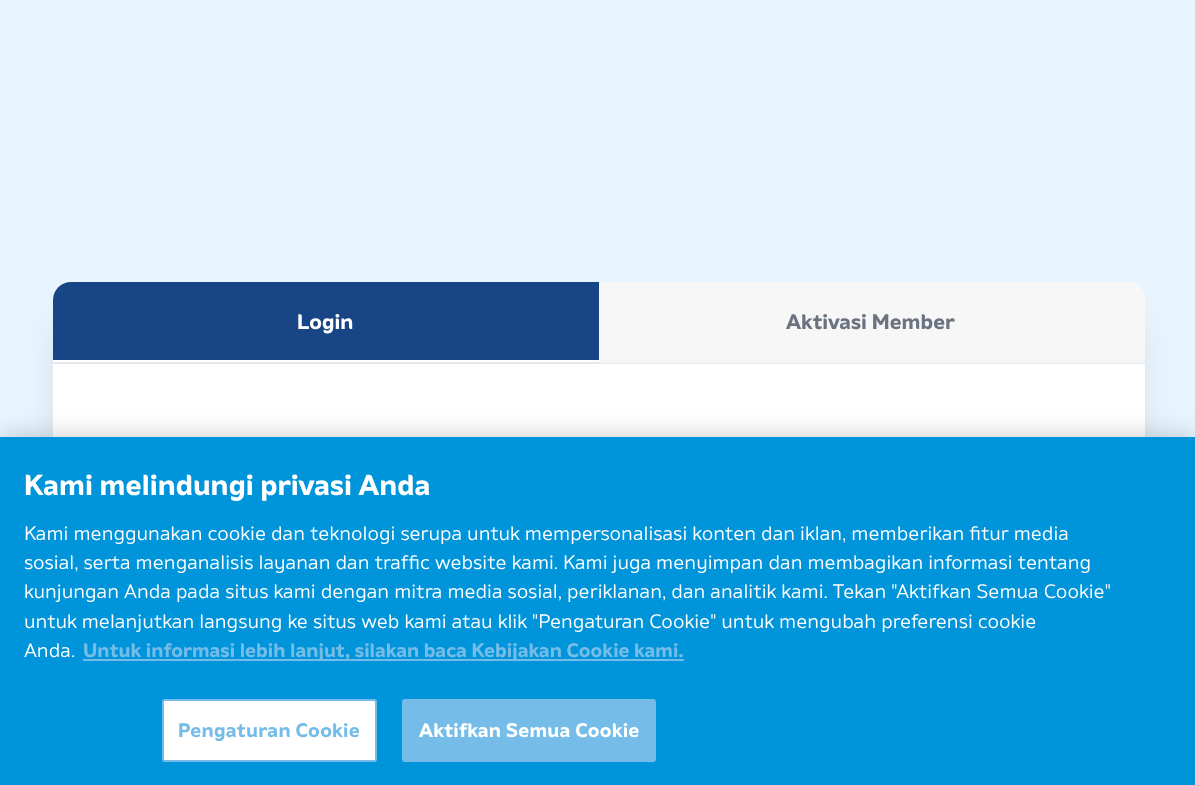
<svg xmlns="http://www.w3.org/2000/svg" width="1195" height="785">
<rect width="100%" height="100%" fill="#e8f5fe"/>
<rect x="60" y="320" width="1077" height="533" rx="11" fill="#0000001a" filter="blur(19px)"/>
<rect x="53" y="282" width="1092" height="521" rx="18" fill="#fff"/>
<rect x="53" y="362" width="1092" height="2" fill="#e5e7eb"/>
<path d="M71 282h528v78h-546v-60c0-10 8-18 18-18z" fill="#174586"/>
<text x="297" y="329" style="font-family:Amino;font-size:21px;font-weight:bold;fill:#fff">Login</text>
<path d="M599 282h528c10 0 18 8 18 18v60h-546z" fill="#f7f7f7"/>
<rect x="599" y="360" width="546" height="3" fill="#f3f4f6"/>
<text x="786" y="329" style="font-family:Amino;font-size:21px;font-weight:bold;fill:#6b7280">Aktivasi Member</text>
<rect y="437" width="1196" height="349" fill="#00000033" filter="blur(13.5px)"/>
<rect y="437" width="1195" height="348" fill="#0095da"/>
<text x="24" y="495" style="font-family:Amino;font-size:28.75px;font-weight:bold;fill:#fff">Kami melindungi privasi Anda</text>
<text x="24" y="540" style="font-family:Amino;font-size:19.5px;fill:#fff">Kami menggunakan cookie dan teknologi serupa untuk mempersonalisasi konten dan iklan, memberikan fitur media</text>
<text x="24" y="569" style="font-family:Amino;font-size:19.5px;fill:#fff">sosial, serta menganalisis layanan dan traffic website kami. Kami juga menyimpan dan membagikan informasi tentang</text>
<text x="24" y="598" style="font-family:Amino;font-size:19.5px;fill:#fff">kunjungan Anda pada situs kami dengan mitra media sosial, periklanan, dan analitik kami. Tekan "Aktifkan Semua Cookie"</text>
<text x="24" y="628" style="font-family:Amino;font-size:19.5px;fill:#fff">untuk melanjutkan langsung ke situs web kami atau klik "Pengaturan Cookie" untuk mengubah preferensi cookie</text>
<text x="24" y="657" style="font-family:Amino;font-size:19.5px;fill:#fff">Anda.</text>
<rect x="83" y="659" width="601" height="2" fill="#75bde8"/>
<text x="83" y="657" style="font-family:Amino;font-size:19.5px;font-weight:bold;fill:#75bde8">Untuk informasi lebih lanjut, silakan baca Kebijakan Cookie kami.</text>
<rect x="163" y="700" width="213" height="61" rx="2" fill="#fff" stroke="#75bde8" stroke-width="2"/>
<text x="178" y="737" style="font-family:Amino;font-size:19.5px;font-weight:bold;letter-spacing:0.2px;fill:#75bde8">Pengaturan Cookie</text>
<rect x="403" y="700" width="252" height="61" rx="2" fill="#75bde8" stroke="#75bde8" stroke-width="2"/>
<text x="419" y="737" style="font-family:Amino;font-size:19.5px;font-weight:bold;letter-spacing:0.2px;fill:#fff">Aktifkan Semua Cookie</text>
</svg>
